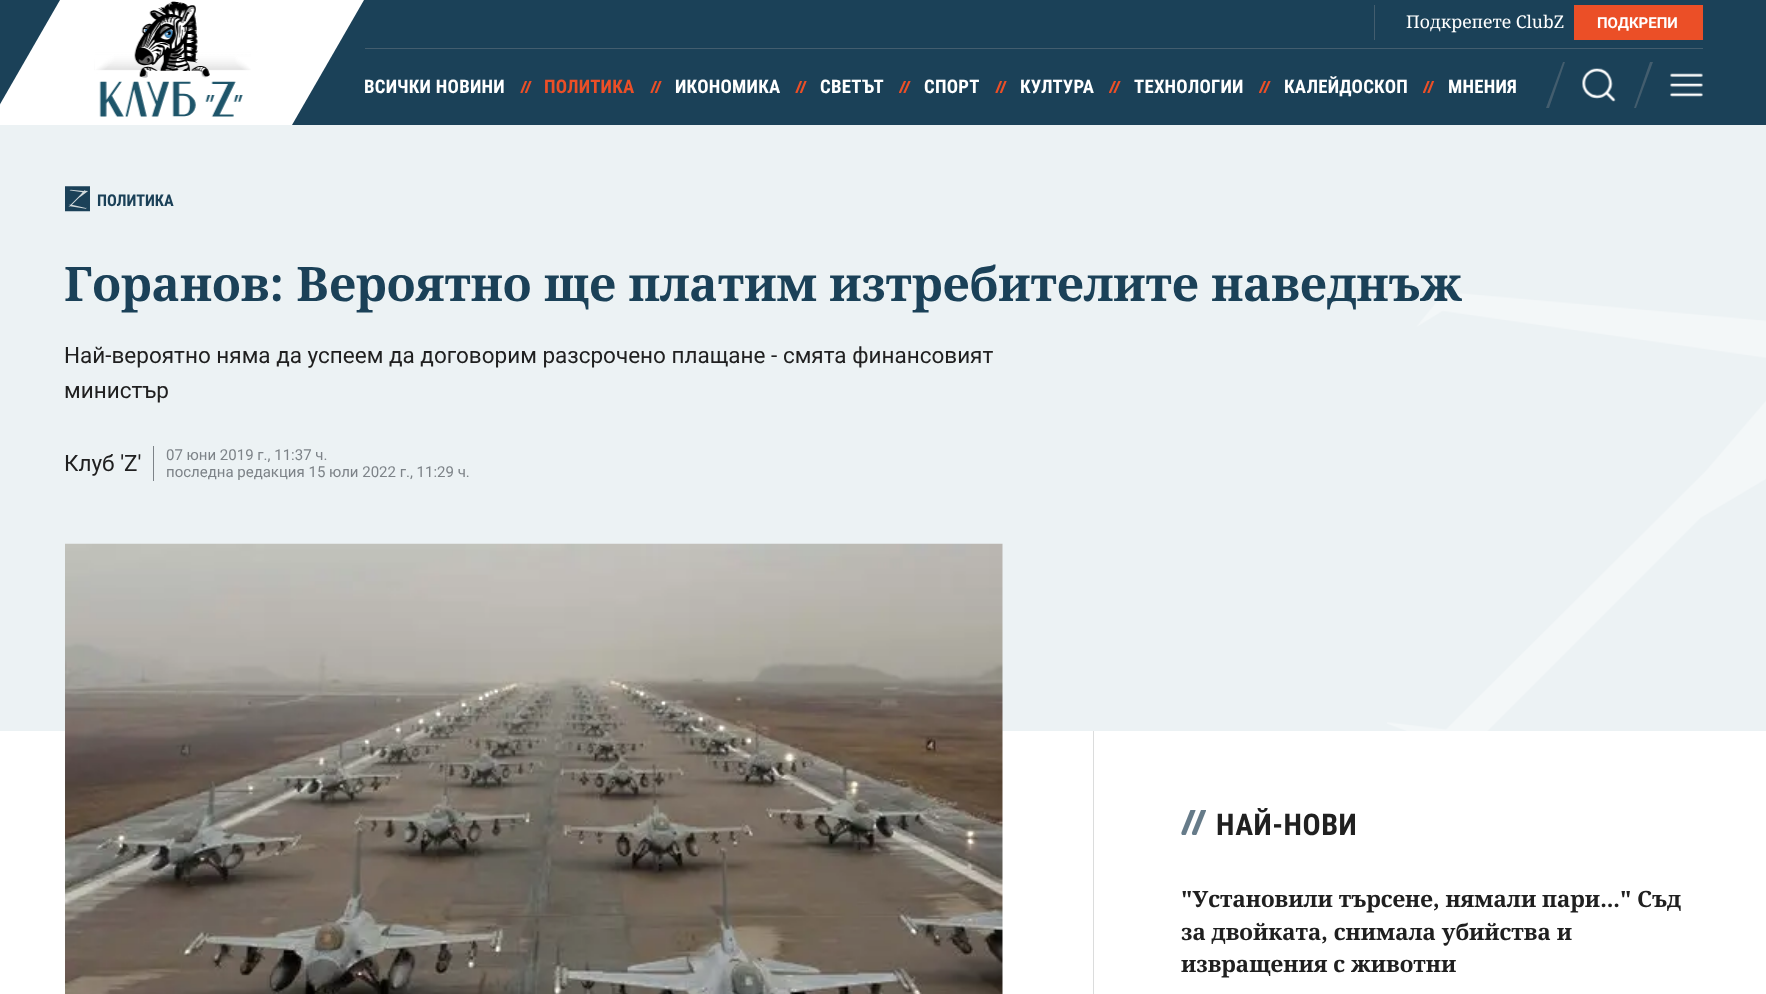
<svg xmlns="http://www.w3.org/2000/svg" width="1766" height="994">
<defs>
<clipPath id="clip1"><rect x="520" y="81" width="13" height="12"/></clipPath>
<clipPath id="clip2"><rect x="650" y="81" width="13" height="12"/></clipPath>
<clipPath id="clip3"><rect x="795" y="81" width="13" height="12"/></clipPath>
<clipPath id="clip4"><rect x="899" y="81" width="12" height="12"/></clipPath>
<clipPath id="clip5"><rect x="995" y="81" width="13" height="12"/></clipPath>
<clipPath id="clip6"><rect x="1109" y="81" width="12" height="12"/></clipPath>
<clipPath id="clip7"><rect x="1259" y="81" width="12" height="12"/></clipPath>
<clipPath id="clip8"><rect x="1423" y="81" width="12" height="12"/></clipPath>
</defs>
<rect width="100%" height="100%" fill="#fff"/>
<rect width="1766" height="125" fill="#1b4158"/>
<path d="M60 0h304l-72 125h-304z" fill="#fff"/>
<image x="94" y="1" width="157" height="116" href="media/1.png"/>
<rect x="1374" y="5" width="1" height="35" fill="#435d6e"/>
<text x="1406" y="28" style="font-family:Noto Serif;font-size:17.5px;fill:#fff">Подкрепете ClubZ</text>
<rect x="1574" y="5" width="129" height="35" fill="#eb4f27"/>
<text x="1597" y="28" style="font-family:Roboto;font-size:15px;font-weight:bold;fill:#fff">ПОДКРЕПИ</text>
<rect x="365" y="48" width="1338" height="1" fill="#435d6e"/>
<text x="364" y="93" style="font-family:Roboto Condensed;font-size:18.75px;font-weight:bold;letter-spacing:0.25px;fill:#fff">ВСИЧКИ НОВИНИ</text>
<g clip-path="url(#clip1)">
<path d="M526.5 80l-5 12.5m9.5-12.5l-5 12.5" fill="none" stroke="#eb4f27" stroke-width="2.1" stroke-linecap="round"/>
</g>
<text x="544" y="93" style="font-family:Roboto Condensed;font-size:18.75px;font-weight:bold;letter-spacing:0.25px;fill:#eb4f27">ПОЛИТИКА</text>
<g clip-path="url(#clip2)">
<path d="M656.5 80l-5 12.5m9.5-12.5l-5 12.5" fill="none" stroke="#eb4f27" stroke-width="2.1" stroke-linecap="round"/>
</g>
<text x="675" y="93" style="font-family:Roboto Condensed;font-size:18.75px;font-weight:bold;letter-spacing:0.25px;fill:#fff">ИКОНОМИКА</text>
<g clip-path="url(#clip3)">
<path d="M801.5 80l-5 12.5m9.5-12.5l-5 12.5" fill="none" stroke="#eb4f27" stroke-width="2.1" stroke-linecap="round"/>
</g>
<text x="820" y="93" style="font-family:Roboto Condensed;font-size:18.75px;font-weight:bold;letter-spacing:0.25px;fill:#fff">СВЕТЪТ</text>
<g clip-path="url(#clip4)">
<path d="M905.5 80l-5.5 12.5m10-12.5l-5.5 12.5" fill="none" stroke="#eb4f27" stroke-width="2.1" stroke-linecap="round"/>
</g>
<text x="924" y="93" style="font-family:Roboto Condensed;font-size:18.75px;font-weight:bold;letter-spacing:0.25px;fill:#fff">СПОРТ</text>
<g clip-path="url(#clip5)">
<path d="M1001.5 80l-5 12.5m9.5-12.5l-5 12.5" fill="none" stroke="#eb4f27" stroke-width="2.1" stroke-linecap="round"/>
</g>
<text x="1020" y="93" style="font-family:Roboto Condensed;font-size:18.75px;font-weight:bold;letter-spacing:0.25px;fill:#fff">КУЛТУРА</text>
<g clip-path="url(#clip6)">
<path d="M1115.5 80l-5.5 12.5m10-12.5l-5.5 12.5" fill="none" stroke="#eb4f27" stroke-width="2.1" stroke-linecap="round"/>
</g>
<text x="1134" y="93" style="font-family:Roboto Condensed;font-size:18.75px;font-weight:bold;letter-spacing:0.25px;fill:#fff">ТЕХНОЛОГИИ</text>
<g clip-path="url(#clip7)">
<path d="M1265.5 80l-5.5 12.5m10-12.5l-5.5 12.5" fill="none" stroke="#eb4f27" stroke-width="2.1" stroke-linecap="round"/>
</g>
<text x="1284" y="93" style="font-family:Roboto Condensed;font-size:18.75px;font-weight:bold;letter-spacing:0.25px;fill:#fff">КАЛЕЙДОСКОП</text>
<g clip-path="url(#clip8)">
<path d="M1429 80l-5 12.5m9.5-12.5l-5 12.5" fill="none" stroke="#eb4f27" stroke-width="2.1" stroke-linecap="round"/>
</g>
<text x="1448" y="93" style="font-family:Roboto Condensed;font-size:18.75px;font-weight:bold;letter-spacing:0.25px;fill:#fff">МНЕНИЯ</text>
<path d="M1563 62h2l-16 46h-3z" fill="#435d6e"/>
<image x="1582" y="68" width="34" height="34" href="media/2.png"/>
<path d="M1650 62h3l-17 46h-2z" fill="#435d6e"/>
<image x="1670" y="73" width="33" height="24" href="media/3.png"/>
<rect y="125" width="1766" height="606" fill="#ecf2f4"/>
<image x="1387" y="292" width="379" height="439" href="media/4.png"/>
<image x="65" y="186" width="25" height="26" href="media/5.png"/>
<text x="97" y="206" style="font-family:Roboto Condensed;font-size:16.25px;font-weight:bold;fill:#1b4158">ПОЛИТИКА</text>
<text x="64" y="301" style="font-family:Noto Serif;font-size:47.5px;font-weight:bold;fill:#1b4158">Горанов: Вероятно ще платим изтребителите наведнъж</text>
<text x="64" y="363" style="font-family:Roboto;font-size:22.5px;fill:#202020">Най-вероятно няма да успеем да договорим разсрочено плащане - смята финансовият</text>
<text x="64" y="398" style="font-family:Roboto;font-size:22.5px;fill:#202020">министър</text>
<text x="64" y="471" style="font-family:Roboto;font-size:22.5px;fill:#202020">Клуб 'Z'</text>
<rect x="153" y="446" width="1" height="35" fill="#7d8388"/>
<text x="166" y="460" style="font-family:Roboto;font-size:15px;fill:#7d8388">07 юни 2019 г., 11:37 ч.</text>
<text x="166" y="477" style="font-family:Roboto;font-size:15px;fill:#7d8388">последна редакция 15 юли 2022 г., 11:29 ч.</text>
<image x="65" y="543" width="938" height="451" href="media/6.png"/>
<rect x="1093" y="731" width="1" height="263" fill="#dbdcdc"/>
<image x="1181" y="810" width="25" height="25" href="media/7.png"/>
<text x="1216" y="835" style="font-family:Roboto Condensed;font-size:30px;font-weight:bold;letter-spacing:0.5px;fill:#202020">НАЙ-НОВИ</text>
<text x="1181" y="907" style="font-family:Noto Serif;font-size:22.5px;font-weight:bold;fill:#202020">"Установили търсене, нямали пари..." Съд</text>
<text x="1181" y="940" style="font-family:Noto Serif;font-size:22.5px;font-weight:bold;fill:#202020">за двойката, снимала убийства и</text>
<text x="1181" y="972" style="font-family:Noto Serif;font-size:22.5px;font-weight:bold;fill:#202020">извращения с животни</text>
</svg>
